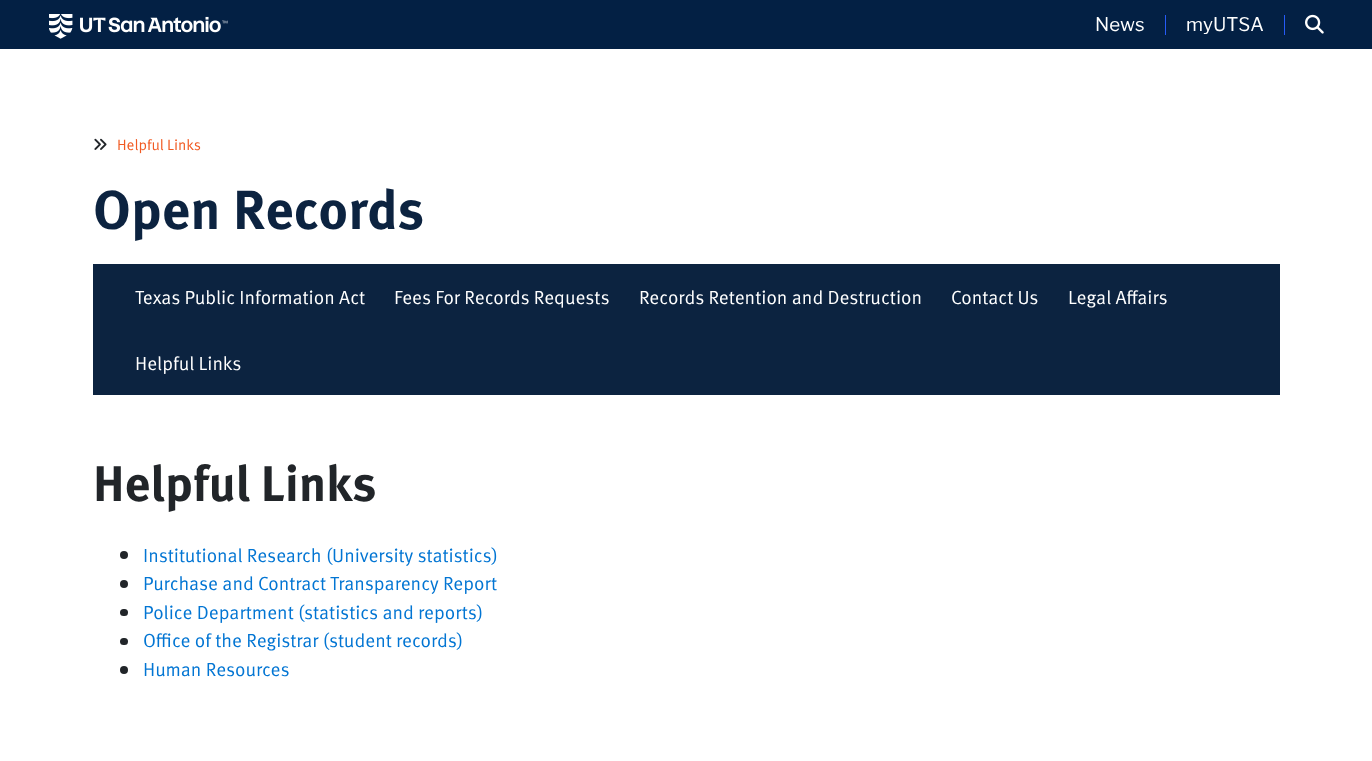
<svg xmlns="http://www.w3.org/2000/svg" width="1372" height="761">
<rect width="100%" height="100%" fill="#fff"/>
<rect width="1372" height="49" fill="#032044"/>
<image x="49" y="14" width="179" height="25" href="media/1.png"/>
<text x="1095" y="31" style="font-family:Libre Franklin;font-size:18.75px;fill:#fff">News</text>
<rect x="1165" y="15" width="1" height="20" fill="#265bf7"/>
<text x="1186" y="31" style="font-family:Libre Franklin;font-size:18.75px;fill:#fff">myUTSA</text>
<rect x="1284" y="15" width="1" height="20" fill="#265bf7"/>
<image x="1305" y="14" width="19" height="20" href="media/2.png"/>
<image x="94" y="138" width="13" height="12" href="media/3.png"/>
<text x="117" y="150" style="font-family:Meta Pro;font-size:15px;fill:#f15a22">Helpful Links</text>
<text x="93" y="229" style="font-family:Meta Pro;font-size:55px;font-weight:bold;fill:#0c2340">Open Records</text>
<rect x="93" y="264" width="1187" height="131" fill="#0c2340"/>
<text x="135" y="304" style="font-family:Meta Pro;font-size:19px;fill:#fff">Texas Public Information Act</text>
<text x="394" y="304" style="font-family:Meta Pro;font-size:19px;fill:#fff">Fees For Records Requests</text>
<text x="639" y="304" style="font-family:Meta Pro;font-size:19px;fill:#fff">Records Retention and Destruction</text>
<text x="951" y="304" style="font-family:Meta Pro;font-size:19px;fill:#fff">Contact Us</text>
<text x="1068" y="304" style="font-family:Meta Pro;font-size:19px;fill:#fff">Legal Affairs</text>
<text x="135" y="370" style="font-family:Meta Pro;font-size:19px;fill:#fff">Helpful Links</text>
<text x="93" y="501" style="font-family:Meta Pro;font-size:50px;font-weight:bold;fill:#212529">Helpful Links</text>
<circle cx="124" cy="555" r="4" fill="#212529"/>
<text x="143" y="562" style="font-family:Meta Pro;font-size:19px;fill:#0275d3">Institutional Research (University statistics)</text>
<circle cx="124" cy="584" r="4" fill="#212529"/>
<text x="143" y="590" style="font-family:Meta Pro;font-size:19px;fill:#0275d3">Purchase and Contract Transparency Report</text>
<rect x="120" y="609" width="8" height="7" rx="3.5" fill="#212529"/>
<text x="143" y="619" style="font-family:Meta Pro;font-size:19px;fill:#0275d3">Police Department (statistics and reports)</text>
<rect x="120" y="638" width="8" height="7" rx="3.5" fill="#212529"/>
<text x="143" y="647" style="font-family:Meta Pro;font-size:19px;fill:#0275d3">Office of the Registrar (student records)</text>
<circle cx="124" cy="670" r="4" fill="#212529"/>
<text x="143" y="676" style="font-family:Meta Pro;font-size:19px;fill:#0275d3">Human Resources</text>
</svg>
